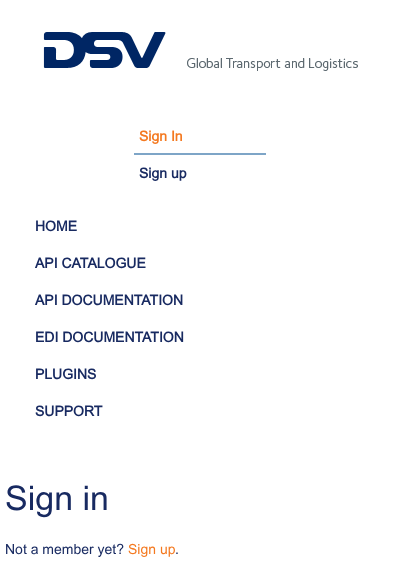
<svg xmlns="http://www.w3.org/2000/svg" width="400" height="570">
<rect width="100%" height="100%" fill="#fff"/>
<image x="43" y="32" width="315" height="39" href="media/1.png"/>
<rect x="134" y="153" width="132" height="2" fill="#7ea5c7"/>
<text x="139" y="141" style="font-family:Arial;font-size:14px;font-weight:bold;fill:#f47920">Sign In</text>
<text x="139" y="178" style="font-family:Arial;font-size:14px;font-weight:bold;fill:#182a61">Sign up</text>
<text x="35" y="231" style="font-family:Arial;font-size:14px;font-weight:bold;fill:#182a61">HOME</text>
<text x="35" y="268" style="font-family:Arial;font-size:14px;font-weight:bold;fill:#182a61">API CATALOGUE</text>
<text x="35" y="305" style="font-family:Arial;font-size:14px;font-weight:bold;fill:#182a61">API DOCUMENTATION</text>
<text x="35" y="342" style="font-family:Arial;font-size:14px;font-weight:bold;fill:#182a61">EDI DOCUMENTATION</text>
<text x="35" y="379" style="font-family:Arial;font-size:14px;font-weight:bold;fill:#182a61">PLUGINS</text>
<text x="35" y="416" style="font-family:Arial;font-size:14px;font-weight:bold;fill:#182a61">SUPPORT</text>
<text x="5" y="510" style="font-family:Arial;font-size:34px;fill:#182a61">Sign in</text>
<text x="5" y="554" style="font-family:Arial;font-size:14px;fill:#182a61">Not a member yet?</text>
<text x="128" y="554" style="font-family:Arial;font-size:14px;fill:#f47920">Sign up</text>
<text x="175" y="554" style="font-family:Arial;font-size:14px;fill:#182a61">.</text>
</svg>
